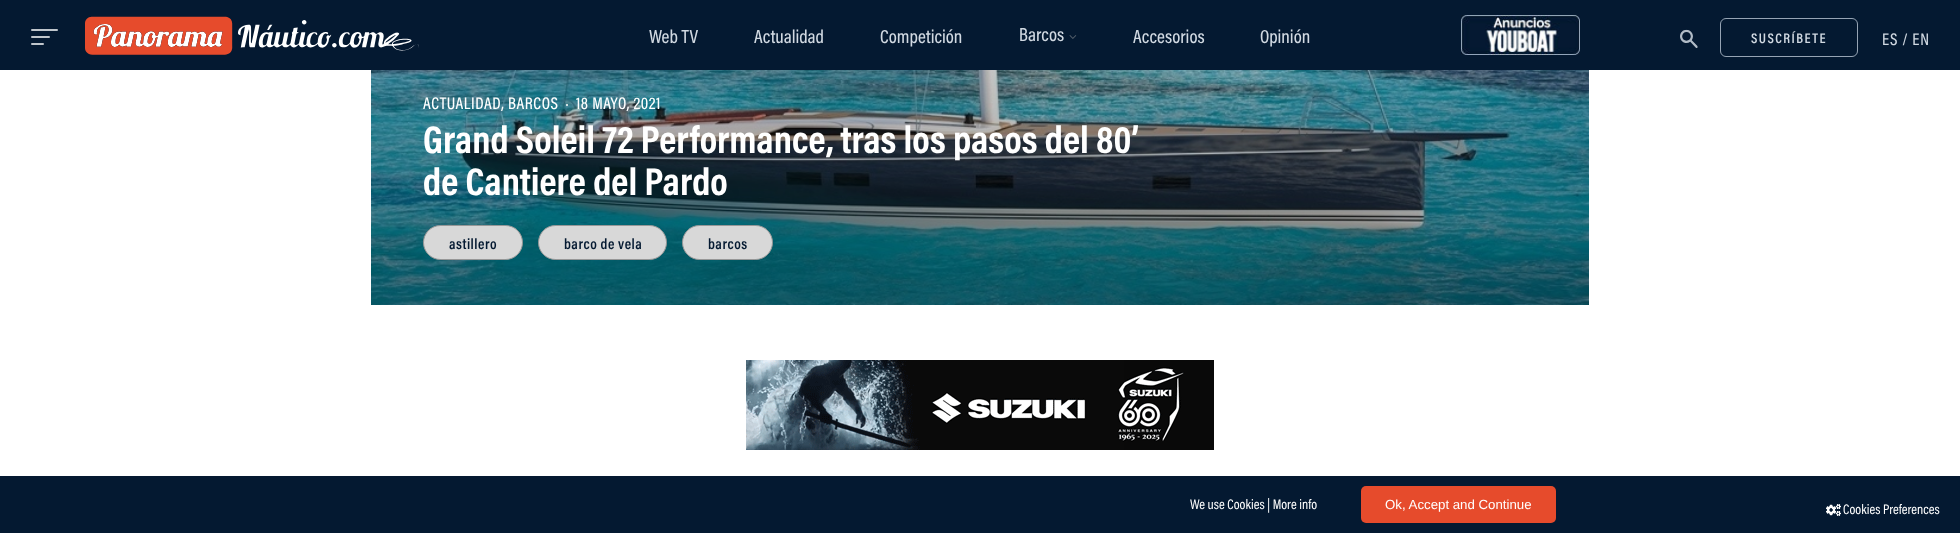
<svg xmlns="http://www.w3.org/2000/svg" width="1960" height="533">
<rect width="100%" height="100%" fill="#fff"/>
<rect width="1960" height="70" fill="#041931"/>
<rect x="31" y="29" width="27" height="2" rx="1" fill="#c0c6cc"/>
<rect x="31" y="36" width="19" height="2" rx="1" fill="#c0c6cc"/>
<rect x="31" y="43" width="13" height="2" rx="1" fill="#c0c6cc"/>
<image x="85" y="16" width="334" height="39" href="media/1.png"/>
<text x="649" y="43" style="font-family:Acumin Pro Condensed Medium;font-size:19px;font-weight:500;fill:#d1d9e2">Web TV</text>
<text x="754" y="43" style="font-family:Acumin Pro Condensed Medium;font-size:19px;font-weight:500;fill:#d1d9e2">Actualidad</text>
<text x="880" y="43" style="font-family:Acumin Pro Condensed Medium;font-size:19px;font-weight:500;fill:#d1d9e2">Competición</text>
<text x="1019" y="41" style="font-family:Acumin Pro Condensed Medium;font-size:19px;font-weight:500;fill:#d1d9e2">Barcos</text>
<image x="1069" y="35" width="8" height="4" href="media/2.png"/>
<text x="1133" y="43" style="font-family:Acumin Pro Condensed Medium;font-size:19px;font-weight:500;fill:#d1d9e2">Accesorios</text>
<text x="1260" y="43" style="font-family:Acumin Pro Condensed Medium;font-size:19px;font-weight:500;fill:#d1d9e2">Opinión</text>
<image x="1461" y="15" width="119" height="40" href="media/3.png"/>
<image x="1680" y="29" width="18" height="19" href="media/4.png"/>
<rect x="1720.5" y="18.5" width="137" height="38" rx="5.5" fill="none" stroke="#96a4b4"/>
<text x="1751" y="43" style="font-family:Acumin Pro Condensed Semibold;font-size:14px;font-weight:600;letter-spacing:1.5px;fill:#d1d9e2">SUSCRÍBETE</text>
<text x="1882" y="45" style="font-family:Acumin Pro Condensed Medium;font-size:17px;font-weight:500;letter-spacing:0.75px;fill:#d1d9e2">ES / EN</text>
<image x="371" y="70" width="1218" height="235" href="media/5.png"/>
<text x="423" y="109" style="font-family:Acumin Pro Condensed Medium;font-size:17px;font-weight:500;letter-spacing:0.5px;fill:#fff">ACTUALIDAD</text>
<text x="501" y="109" style="font-family:Acumin Pro Condensed Medium;font-size:17px;font-weight:500;letter-spacing:0.5px;fill:#fff">, BARCOS</text>
<circle cx="567" cy="105" r="1" fill="#fff"/>
<text x="576" y="109" style="font-family:Acumin Pro Condensed Medium;font-size:17px;font-weight:500;letter-spacing:0.5px;fill:#fff">18 MAYO, 2021</text>
<text x="423" y="153" style="font-family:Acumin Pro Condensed;font-size:39px;font-weight:bold;fill:#fff">Grand Soleil 72 Performance, tras los pasos del 80’</text>
<text x="423" y="195" style="font-family:Acumin Pro Condensed;font-size:39px;font-weight:bold;fill:#fff">de Cantiere del Pardo</text>
<rect x="423.5" y="225.5" width="99" height="34" rx="17" fill="#d8d8d8" stroke="#979797"/>
<text x="449" y="249" style="font-family:Acumin Pro Condensed Semibold;font-size:15px;font-weight:600;letter-spacing:0.5px;fill:#041931">astillero</text>
<rect x="538.5" y="225.5" width="128" height="34" rx="17" fill="#d8d8d8" stroke="#979797"/>
<text x="564" y="249" style="font-family:Acumin Pro Condensed Semibold;font-size:15px;font-weight:600;letter-spacing:0.5px;fill:#041931">barco de vela</text>
<rect x="682.5" y="225.5" width="90" height="34" rx="17" fill="#d8d8d8" stroke="#979797"/>
<text x="708" y="249" style="font-family:Acumin Pro Condensed Semibold;font-size:15px;font-weight:600;letter-spacing:0.5px;fill:#041931">barcos</text>
<image x="746" y="360" width="468" height="90" href="media/6.png"/>
<rect y="476" width="1960" height="57" fill="#041931"/>
<text x="1190" y="509" style="font-family:Acumin Pro Condensed;font-size:14px;fill:#fff">We use Cookies | More info</text>
<rect x="1361" y="486" width="195" height="37" rx="5" fill="#e64b2c"/>
<text x="1385" y="509" style="font-family:Liberation Sans;font-size:13.25px;fill:#fff">Ok, Accept and Continue</text>
<image x="1826" y="504" width="15" height="12" href="media/7.png"/>
<text x="1843" y="514" style="font-family:Acumin Pro Condensed;font-size:14px;fill:#fff">Cookies Preferences</text>
</svg>
